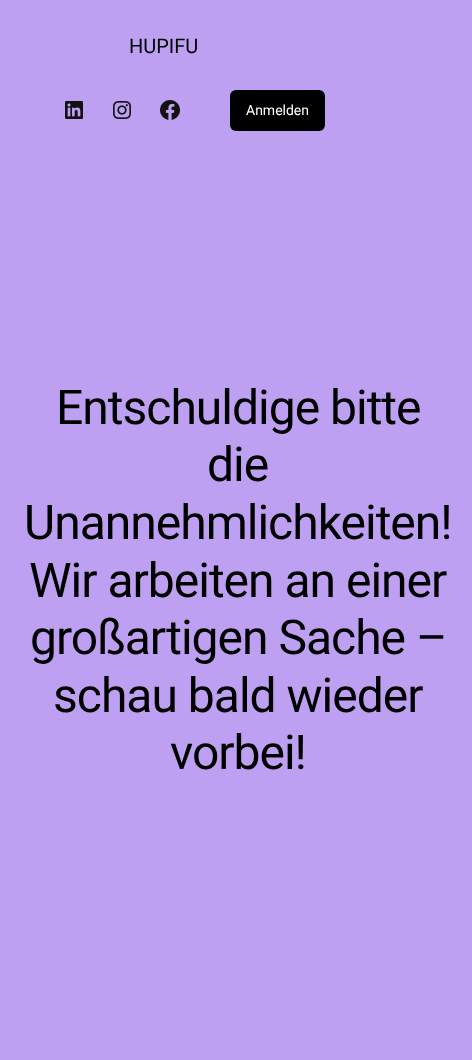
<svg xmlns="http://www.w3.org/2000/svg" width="472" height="1060">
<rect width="100%" height="100%" fill="#bea0f2"/>
<text x="129" y="53" style="font-family:Roboto;font-size:20px;fill:#000">HUPIFU</text>
<image x="65" y="101" width="18" height="18" href="media/1.png"/>
<image x="113" y="101" width="18" height="18" href="media/2.png"/>
<image x="160" y="100" width="20" height="20" href="media/3.png"/>
<rect x="230" y="90" width="95" height="41" rx="6" fill="#000"/>
<text x="246" y="115" style="font-family:Roboto;font-size:14px;fill:#fff">Anmelden</text>
<text x="56" y="424" style="font-family:Roboto;font-size:48px;letter-spacing:-1px;fill:#000">Entschuldige bitte</text>
<text x="207" y="481" style="font-family:Roboto;font-size:48px;letter-spacing:-1px;fill:#000">die</text>
<text x="24" y="539" style="font-family:Roboto;font-size:48px;letter-spacing:-1px;fill:#000">Unannehmlichkeiten!</text>
<text x="29" y="597" style="font-family:Roboto;font-size:48px;letter-spacing:-1px;fill:#000">Wir arbeiten an einer</text>
<text x="30" y="654" style="font-family:Roboto;font-size:48px;letter-spacing:-1px;fill:#000">großartigen Sache –</text>
<text x="53" y="712" style="font-family:Roboto;font-size:48px;letter-spacing:-1px;fill:#000">schau bald wieder</text>
<text x="170" y="769" style="font-family:Roboto;font-size:48px;letter-spacing:-1px;fill:#000">vorbei!</text>
</svg>
